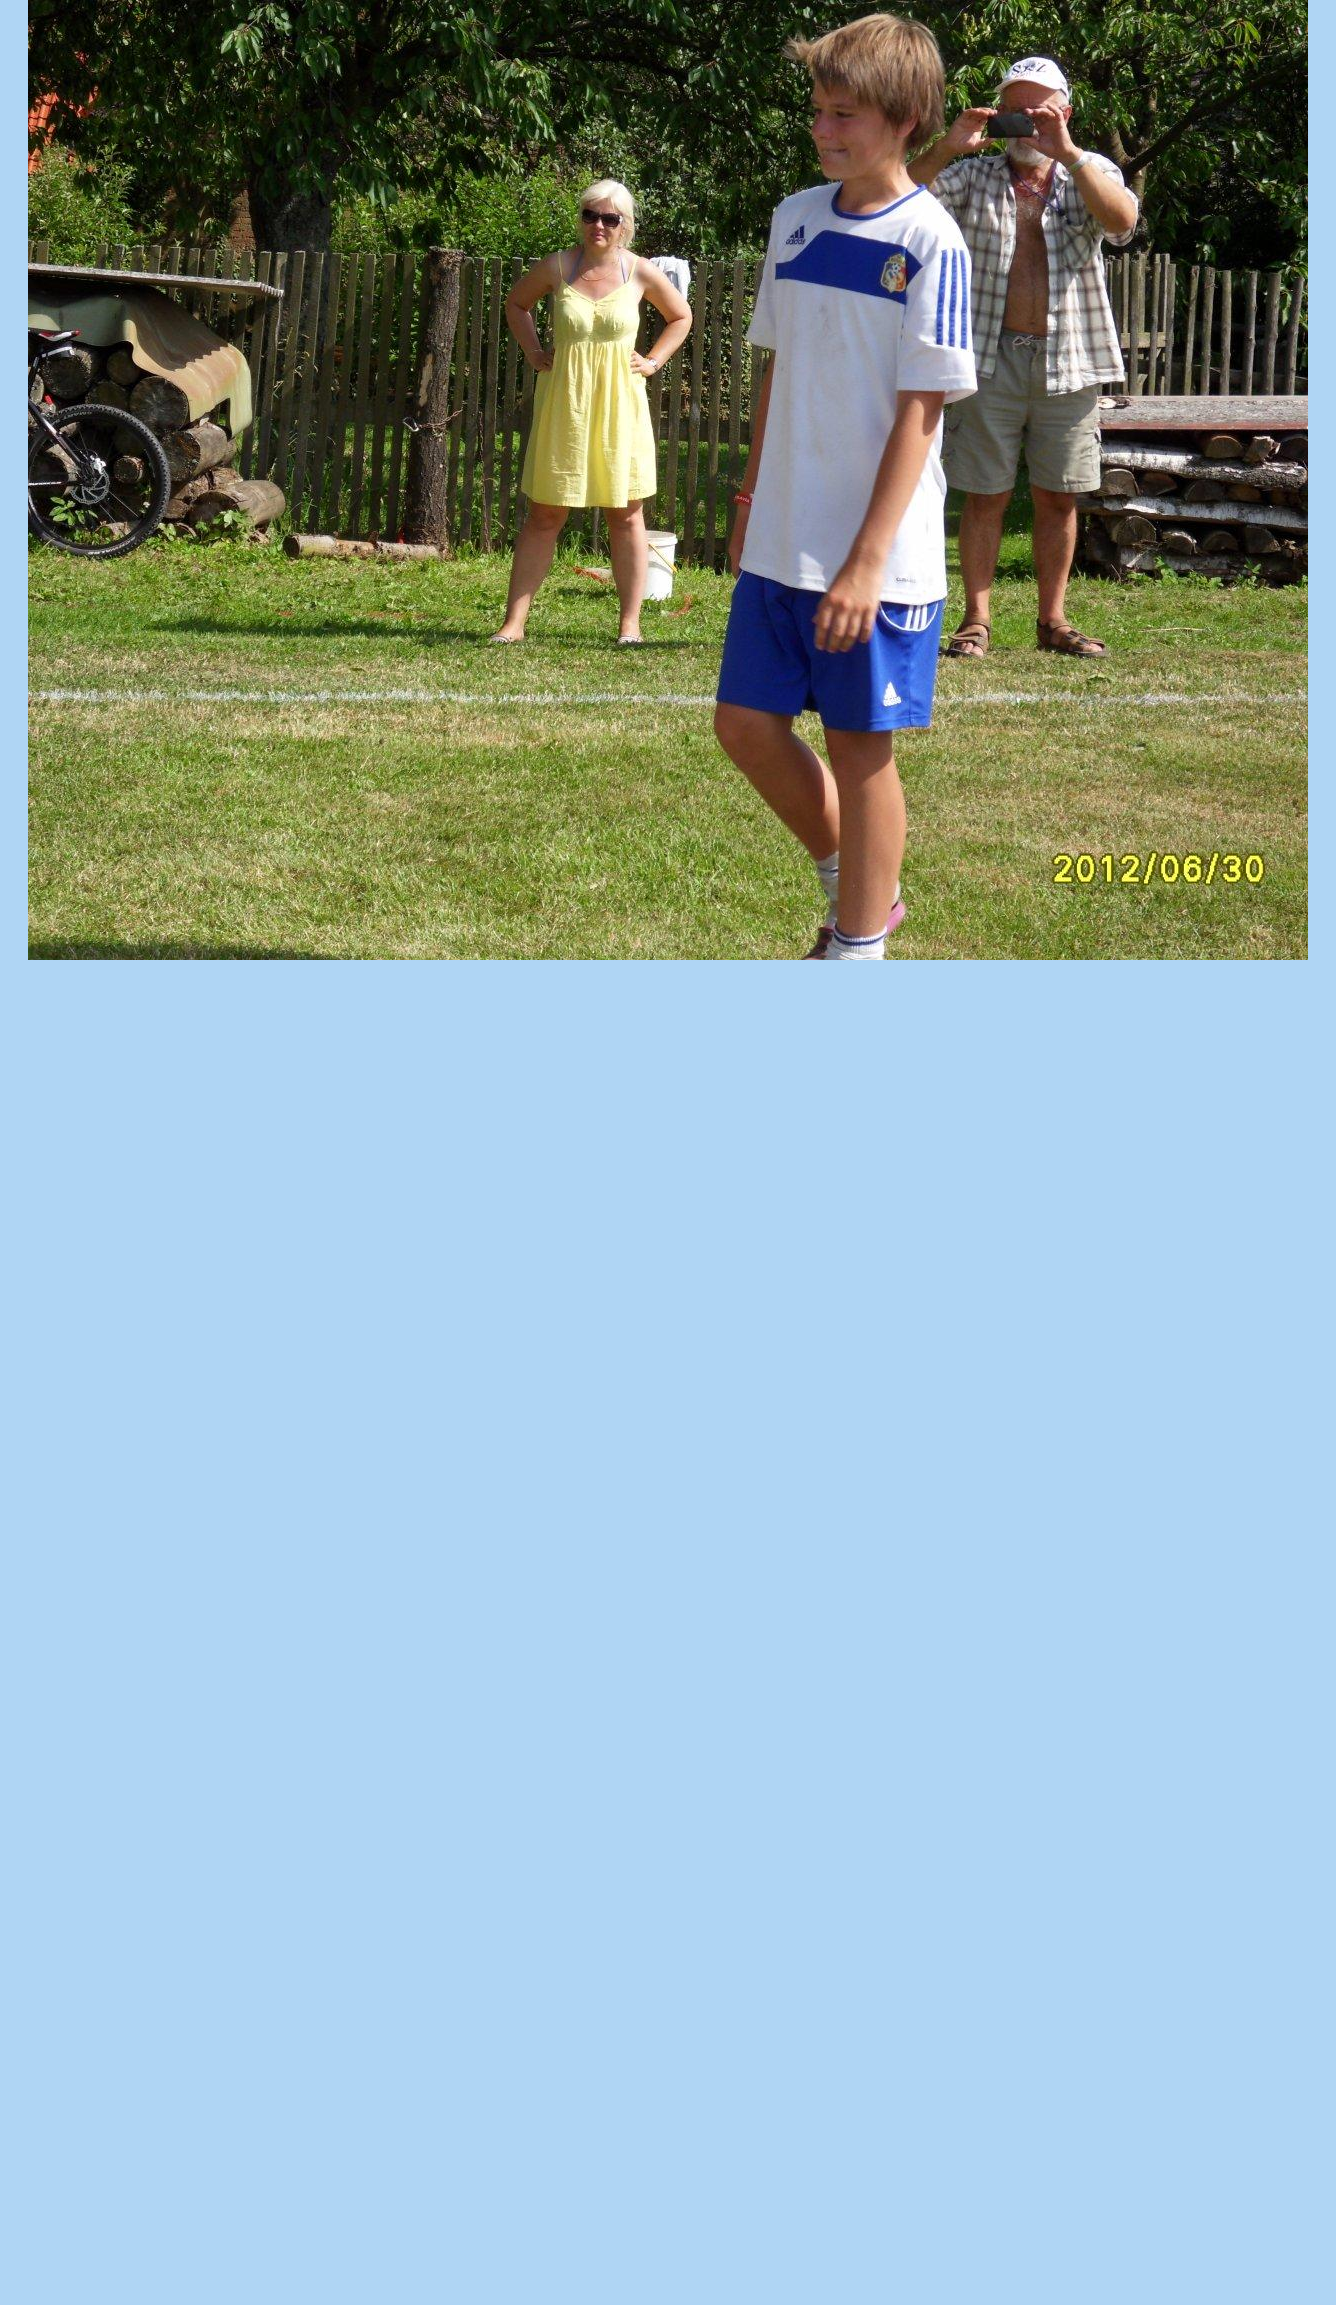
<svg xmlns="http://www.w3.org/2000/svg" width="1336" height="2305">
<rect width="100%" height="100%" fill="#afd5f4"/>
<image x="28" y="0" width="1280" height="960" href="media/1.png"/>
</svg>
